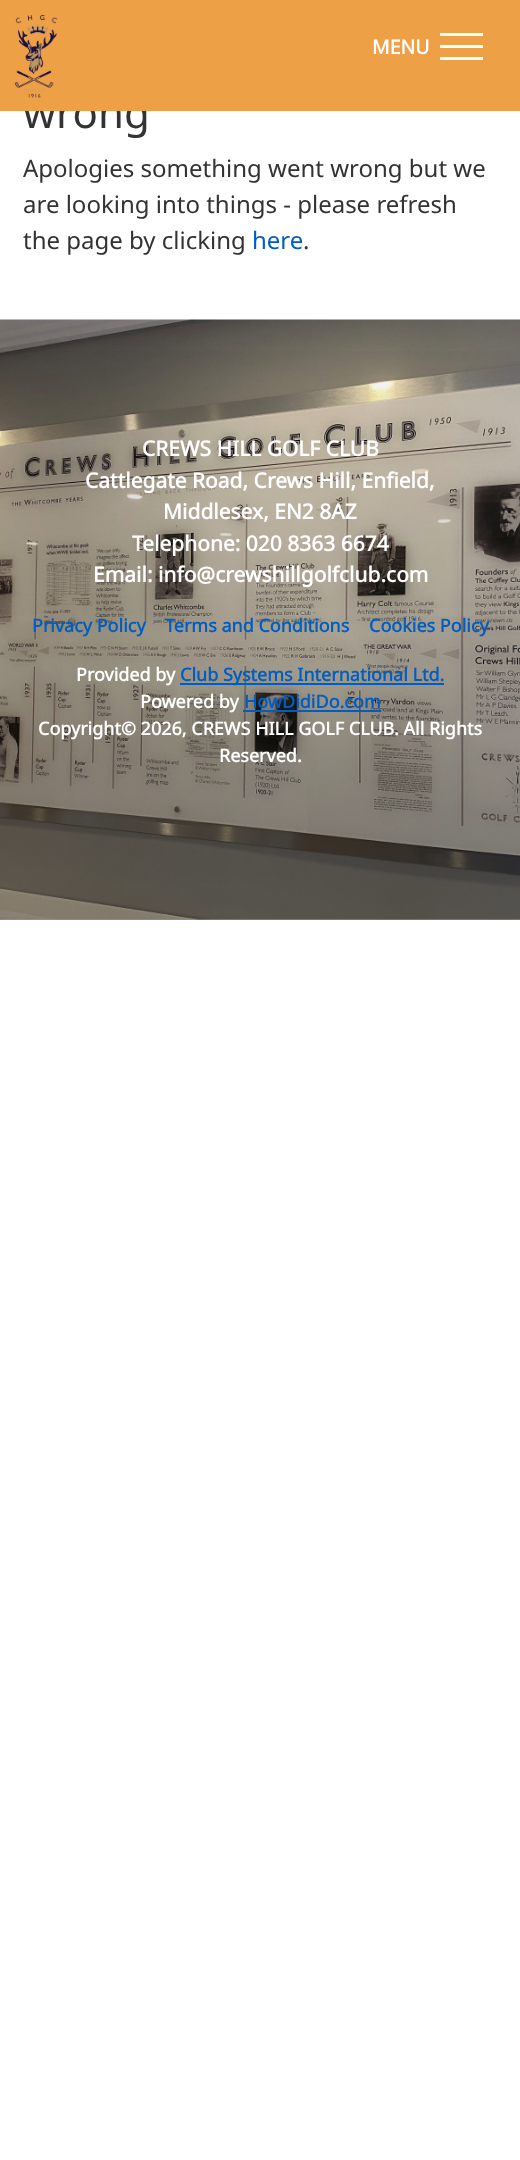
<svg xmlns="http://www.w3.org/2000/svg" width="520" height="2160">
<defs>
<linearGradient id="g1" gradientUnits="userSpaceOnUse" x1="260" y1="319" x2="260" y2="920"><stop offset="0" stop-color="#000" stop-opacity="0"/><stop offset="1" stop-color="#000" stop-opacity="0.4"/></linearGradient>
</defs>
<rect width="100%" height="100%" fill="#fff"/>
<text x="23" y="128" style="font-family:Noto Sans;font-size:42px;fill:#333">wrong</text>
<rect width="520" height="111" fill="#eda046"/>
<image x="15" y="15" width="43" height="83" href="media/1.png"/>
<text x="372" y="54" style="font-family:Noto Sans;font-size:19.5px;font-weight:bold;fill:#fff">MENU</text>
<rect x="440" y="33" width="43" height="3" fill="#fff"/>
<rect x="440" y="45" width="43" height="3" fill="#fff"/>
<rect x="440" y="57" width="43" height="3" fill="#fff"/>
<text x="23" y="177" style="font-family:Noto Sans;font-size:24px;fill:#333">Apologies something went wrong but we</text>
<text x="23" y="213" style="font-family:Noto Sans;font-size:24px;fill:#333">are looking into things - please refresh</text>
<text x="23" y="249" style="font-family:Noto Sans;font-size:24px;fill:#333">the page by clicking</text>
<text x="252" y="249" style="font-family:Noto Sans;font-size:24px;fill:#005dc1">here</text>
<text x="303" y="249" style="font-family:Noto Sans;font-size:24px;fill:#333">.</text>
<image x="0" y="319" width="520" height="601" href="media/2.png"/>
<rect y="351" width="520" height="569" fill="url(#g1)"/>
<text x="142" y="456" style="font-family:Noto Sans;font-size:21px;font-weight:bold;fill:#fff">CREWS HILL GOLF CLUB</text>
<text x="85" y="488" style="font-family:Noto Sans;font-size:21px;font-weight:bold;fill:#fff">Cattlegate Road, Crews Hill, Enfield,</text>
<text x="163" y="519" style="font-family:Noto Sans;font-size:21px;font-weight:bold;fill:#fff">Middlesex, EN2 8AZ</text>
<text x="132" y="551" style="font-family:Noto Sans;font-size:21px;font-weight:bold;fill:#fff">Telephone: 020 8363 6674</text>
<text x="93" y="582" style="font-family:Noto Sans;font-size:21px;font-weight:bold;fill:#fff">Email: info@crewshillgolfclub.com</text>
<text x="32" y="632" style="font-family:Noto Sans;font-size:18px;font-weight:bold;fill:#005dc1">Privacy Policy</text>
<text x="165" y="632" style="font-family:Noto Sans;font-size:18px;font-weight:bold;fill:#005dc1">Terms and Conditions</text>
<text x="369" y="632" style="font-family:Noto Sans;font-size:18px;font-weight:bold;fill:#005dc1">Cookies Policy</text>
<text x="76" y="681" style="font-family:Noto Sans;font-size:18px;font-weight:bold;fill:#fff">Provided by</text>
<rect x="180" y="683" width="264" height="2" fill="#005dc1"/>
<text x="180" y="681" style="font-family:Noto Sans;font-size:18px;font-weight:bold;fill:#005dc1">Club Systems International Ltd.</text>
<text x="140" y="708" style="font-family:Noto Sans;font-size:18px;font-weight:bold;fill:#fff">Powered by</text>
<text x="244" y="708" style="font-family:Noto Sans;font-size:18px;font-weight:bold;fill:#005dc1">HowDidiDo.com</text>
<rect x="243" y="710" width="138" height="2" fill="#005dc1"/>
<text x="38" y="735" style="font-family:Noto Sans;font-size:18px;font-weight:bold;fill:#fff">Copyright© 2026, CREWS HILL GOLF CLUB. All Rights</text>
<text x="219" y="762" style="font-family:Noto Sans;font-size:18px;font-weight:bold;fill:#fff">Reserved.</text>
</svg>
